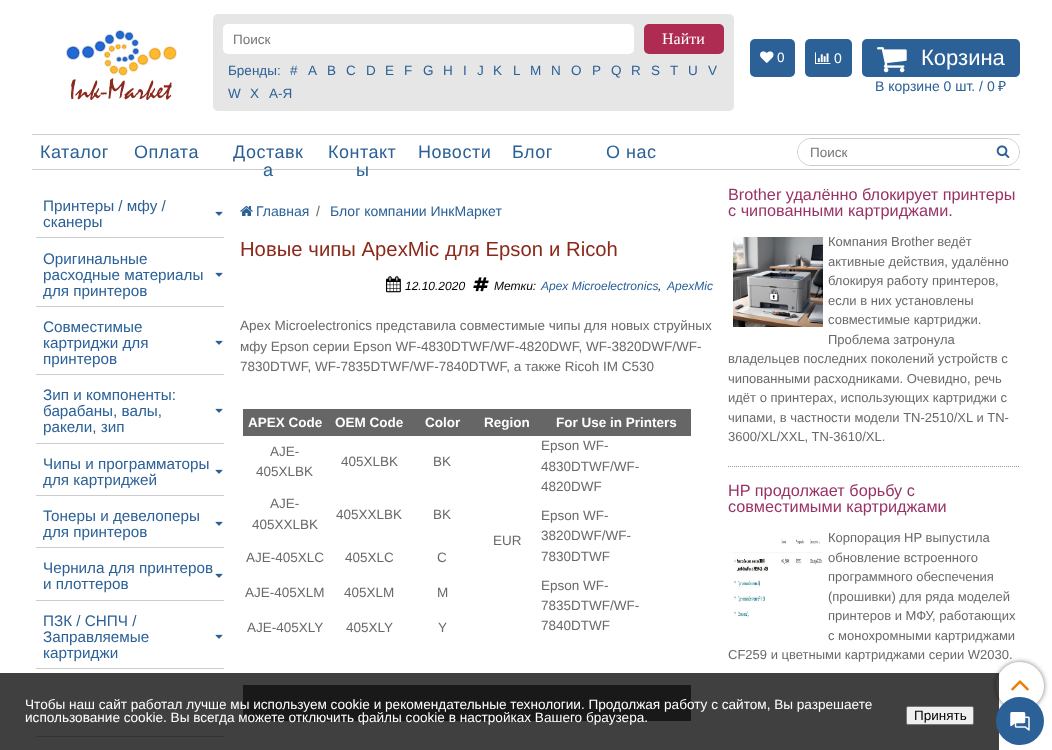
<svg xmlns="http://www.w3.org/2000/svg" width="1052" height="750">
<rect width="100%" height="100%" fill="#fff"/>
<image x="66" y="30" width="111" height="70" href="media/1.png"/>
<rect x="213" y="14" width="521" height="97" rx="5" fill="#e6e6e6"/>
<rect x="223" y="24" width="411" height="30" rx="5" fill="#fff"/>
<text x="233" y="44" style="font-family:Liberation Sans;font-size:13.5px;fill:#757575">Поиск</text>
<rect x="644" y="24" width="80" height="30" rx="5" fill="#ae2c52"/>
<text x="662" y="44" style="font-family:Liberation Serif;font-size:16px;fill:#fff">Найти</text>
<text x="228" y="75" style="font-family:Liberation Sans;font-size:13.5px;fill:#2c6197">Бренды:</text>
<text x="290" y="75" style="font-family:Liberation Sans;font-size:13.5px;fill:#2c6197">#</text>
<text x="308" y="75" style="font-family:Liberation Sans;font-size:13.5px;fill:#2c6197">A</text>
<text x="327" y="75" style="font-family:Liberation Sans;font-size:13.5px;fill:#2c6197">B</text>
<text x="346" y="75" style="font-family:Liberation Sans;font-size:13.5px;fill:#2c6197">C</text>
<text x="366" y="75" style="font-family:Liberation Sans;font-size:13.5px;fill:#2c6197">D</text>
<text x="385" y="75" style="font-family:Liberation Sans;font-size:13.5px;fill:#2c6197">E</text>
<text x="404" y="75" style="font-family:Liberation Sans;font-size:13.5px;fill:#2c6197">F</text>
<text x="423" y="75" style="font-family:Liberation Sans;font-size:13.5px;fill:#2c6197">G</text>
<text x="443" y="75" style="font-family:Liberation Sans;font-size:13.5px;fill:#2c6197">H</text>
<text x="463" y="75" style="font-family:Liberation Sans;font-size:13.5px;fill:#2c6197">I</text>
<text x="477" y="75" style="font-family:Liberation Sans;font-size:13.5px;fill:#2c6197">J</text>
<text x="493" y="75" style="font-family:Liberation Sans;font-size:13.5px;fill:#2c6197">K</text>
<text x="513" y="75" style="font-family:Liberation Sans;font-size:13.5px;fill:#2c6197">L</text>
<text x="530" y="75" style="font-family:Liberation Sans;font-size:13.5px;fill:#2c6197">M</text>
<text x="551" y="75" style="font-family:Liberation Sans;font-size:13.5px;fill:#2c6197">N</text>
<text x="571" y="75" style="font-family:Liberation Sans;font-size:13.5px;fill:#2c6197">O</text>
<text x="592" y="75" style="font-family:Liberation Sans;font-size:13.5px;fill:#2c6197">P</text>
<text x="611" y="75" style="font-family:Liberation Sans;font-size:13.5px;fill:#2c6197">Q</text>
<text x="631" y="75" style="font-family:Liberation Sans;font-size:13.5px;fill:#2c6197">R</text>
<text x="651" y="75" style="font-family:Liberation Sans;font-size:13.5px;fill:#2c6197">S</text>
<text x="670" y="75" style="font-family:Liberation Sans;font-size:13.5px;fill:#2c6197">T</text>
<text x="688" y="75" style="font-family:Liberation Sans;font-size:13.5px;fill:#2c6197">U</text>
<text x="708" y="75" style="font-family:Liberation Sans;font-size:13.5px;fill:#2c6197">V</text>
<text x="228" y="98" style="font-family:Liberation Sans;font-size:13.5px;fill:#2c6197">W</text>
<text x="250" y="98" style="font-family:Liberation Sans;font-size:13.5px;fill:#2c6197">X</text>
<text x="269" y="98" style="font-family:Liberation Sans;font-size:13.5px;fill:#2c6197">А-Я</text>
<rect x="750" y="39" width="45" height="38" rx="5" fill="#2c6197"/>
<image x="760" y="51" width="14" height="12" href="media/2.png"/>
<text x="777" y="62" style="font-family:Liberation Sans;font-size:13.5px;fill:#fff">0</text>
<rect x="805" y="39" width="47" height="38" rx="5" fill="#2c6197"/>
<image x="815" y="52" width="16" height="12" href="media/3.png"/>
<text x="834" y="63" style="font-family:Liberation Sans;font-size:14px;fill:#fff">0</text>
<rect x="862" y="39" width="158" height="38" rx="5" fill="#2c6197"/>
<image x="877" y="47" width="30" height="26" href="media/4.png"/>
<text x="921" y="65" style="font-family:Liberation Sans;font-size:22px;fill:#fff">Корзина</text>
<text x="875" y="91" style="font-family:Liberation Sans;font-size:14px;fill:#2c6197">В корзине 0 шт. / 0</text>
<text x="998" y="91" style="font-family:Noto Sans;font-size:14px;fill:#2c6197">₽</text>
<rect x="32" y="134" width="988" height="1" fill="#ccc"/>
<rect x="32" y="169" width="988" height="1" fill="#ccc"/>
<text x="40" y="158" style="font-family:Liberation Sans;font-size:18px;letter-spacing:0.5px;fill:#2c6197">Каталог</text>
<text x="134" y="158" style="font-family:Liberation Sans;font-size:18px;letter-spacing:0.5px;fill:#2c6197">Оплата</text>
<text x="233" y="158" style="font-family:Liberation Sans;font-size:18px;letter-spacing:0.5px;fill:#2c6197">Доставк</text>
<text x="263" y="176" style="font-family:Liberation Sans;font-size:18px;letter-spacing:0.5px;fill:#2c6197">а</text>
<text x="328" y="158" style="font-family:Liberation Sans;font-size:18px;letter-spacing:0.5px;fill:#2c6197">Контакт</text>
<text x="356" y="176" style="font-family:Liberation Sans;font-size:18px;letter-spacing:0.5px;fill:#2c6197">ы</text>
<text x="418" y="158" style="font-family:Liberation Sans;font-size:18px;letter-spacing:0.5px;fill:#2c6197">Новости</text>
<text x="512" y="158" style="font-family:Liberation Sans;font-size:18px;letter-spacing:0.5px;fill:#2c6197">Блог</text>
<text x="606" y="158" style="font-family:Liberation Sans;font-size:18px;letter-spacing:0.5px;fill:#2c6197">О нас</text>
<rect x="797.5" y="138.5" width="222" height="27" rx="13.5" fill="none" stroke="#ccc"/>
<path d="M811 139h176v26h-176c-7 0-13-6-13-13c0-7 6-13 13-13z" fill="#fff"/>
<text x="810" y="157" style="font-family:Liberation Sans;font-size:13.5px;fill:#757575">Поиск</text>
<path d="M987 139h19c7 0 13 6 13 13c0 7-6 13-13 13h-19z" fill="#fff"/>
<image x="996" y="145" width="14" height="13" href="media/5.png"/>
<rect x="36" y="237" width="188" height="1" fill="#ccc"/>
<text x="43" y="211" style="font-family:Liberation Sans;font-size:15.25px;fill:#2c6197">Принтеры / мфу /</text>
<text x="43" y="227" style="font-family:Liberation Sans;font-size:15.25px;fill:#2c6197">сканеры</text>
<image x="215" y="211" width="8" height="5" href="media/6.png"/>
<rect x="36" y="306" width="188" height="1" fill="#ccc"/>
<text x="43" y="264" style="font-family:Liberation Sans;font-size:15.25px;fill:#2c6197">Оригинальные</text>
<text x="43" y="280" style="font-family:Liberation Sans;font-size:15.25px;fill:#2c6197">расходные материалы</text>
<text x="43" y="296" style="font-family:Liberation Sans;font-size:15.25px;fill:#2c6197">для принтеров</text>
<image x="215" y="272" width="8" height="5" href="media/6.png"/>
<rect x="36" y="374" width="188" height="1" fill="#ccc"/>
<text x="43" y="332" style="font-family:Liberation Sans;font-size:15.25px;fill:#2c6197">Совместимые</text>
<text x="43" y="348" style="font-family:Liberation Sans;font-size:15.25px;fill:#2c6197">картриджи для</text>
<text x="43" y="364" style="font-family:Liberation Sans;font-size:15.25px;fill:#2c6197">принтеров</text>
<image x="215" y="340" width="8" height="5" href="media/6.png"/>
<rect x="36" y="443" width="188" height="1" fill="#ccc"/>
<text x="43" y="400" style="font-family:Liberation Sans;font-size:15.25px;fill:#2c6197">Зип и компоненты:</text>
<text x="43" y="416" style="font-family:Liberation Sans;font-size:15.25px;fill:#2c6197">барабаны, валы,</text>
<text x="43" y="432" style="font-family:Liberation Sans;font-size:15.25px;fill:#2c6197">ракели, зип</text>
<image x="215" y="408" width="8" height="5" href="media/6.png"/>
<rect x="36" y="495" width="188" height="1" fill="#ccc"/>
<text x="43" y="469" style="font-family:Liberation Sans;font-size:15.25px;fill:#2c6197">Чипы и программаторы</text>
<text x="43" y="485" style="font-family:Liberation Sans;font-size:15.25px;fill:#2c6197">для картриджей</text>
<image x="215" y="469" width="8" height="5" href="media/6.png"/>
<rect x="36" y="547" width="188" height="1" fill="#ccc"/>
<text x="43" y="521" style="font-family:Liberation Sans;font-size:15.25px;fill:#2c6197">Тонеры и девелоперы</text>
<text x="43" y="537" style="font-family:Liberation Sans;font-size:15.25px;fill:#2c6197">для принтеров</text>
<image x="215" y="521" width="8" height="5" href="media/6.png"/>
<rect x="36" y="600" width="188" height="1" fill="#ccc"/>
<text x="43" y="573" style="font-family:Liberation Sans;font-size:15.25px;fill:#2c6197">Чернила для принтеров</text>
<text x="43" y="589" style="font-family:Liberation Sans;font-size:15.25px;fill:#2c6197">и плоттеров</text>
<image x="215" y="573" width="8" height="5" href="media/6.png"/>
<rect x="36" y="668" width="188" height="1" fill="#ccc"/>
<text x="43" y="626" style="font-family:Liberation Sans;font-size:15.25px;fill:#2c6197">ПЗК / СНПЧ /</text>
<text x="43" y="642" style="font-family:Liberation Sans;font-size:15.25px;fill:#2c6197">Заправляемые</text>
<text x="43" y="658" style="font-family:Liberation Sans;font-size:15.25px;fill:#2c6197">картриджи</text>
<image x="215" y="634" width="8" height="5" href="media/6.png"/>
<rect x="36" y="736" width="188" height="1" fill="#ccc"/>
<image x="215" y="702" width="8" height="5" href="media/6.png"/>
<image x="240" y="206" width="13" height="10" href="media/7.png"/>
<text x="256" y="216" style="font-family:Liberation Sans;font-size:14px;fill:#2c6197">Главная</text>
<text x="316" y="216" style="font-family:Liberation Sans;font-size:14px;fill:#696969">/</text>
<text x="330" y="216" style="font-family:Liberation Sans;font-size:14px;fill:#2c6197">Блог компании ИнкМаркет</text>
<text x="240" y="256" word-spacing="0.25" style="font-family:Liberation Sans;font-size:20.25px;fill:#8b281a">Новые чипы ApexMic для Epson и Ricoh</text>
<image x="386" y="276" width="15" height="17" href="media/8.png"/>
<text x="405" y="290" style="font-family:Liberation Sans;font-size:12px;font-style:italic;fill:#000">12.10.2020</text>
<image x="473" y="277" width="16" height="15" href="media/9.png"/>
<text x="494" y="290" style="font-family:Liberation Sans;font-size:12px;font-style:italic;fill:#000">Метки:</text>
<text x="541" y="290" style="font-family:Liberation Sans;font-size:12px;font-style:italic;fill:#2c6197">Apex Microelectronics</text>
<text x="658" y="290" style="font-family:Liberation Sans;font-size:12px;font-style:italic;fill:#000">,</text>
<text x="667" y="290" style="font-family:Liberation Sans;font-size:12px;font-style:italic;fill:#2c6197">ApexMic</text>
<text x="240" y="330" style="font-family:Liberation Sans;font-size:13.5px;fill:#696969">Apex Microelectronics представила совместимые чипы для новых струйных</text>
<text x="240" y="351" style="font-family:Liberation Sans;font-size:13.5px;fill:#696969">мфу Epson серии Epson WF-4830DTWF/WF-4820DWF, WF-3820DWF/WF-</text>
<text x="240" y="371" style="font-family:Liberation Sans;font-size:13.5px;fill:#696969">7830DTWF, WF-7835DTWF/WF-7840DTWF, а также Ricoh IM C530</text>
<rect x="243" y="409" width="448" height="27" fill="#666"/>
<text x="248" y="427" style="font-family:Liberation Sans;font-size:13.5px;font-weight:bold;fill:#fff">APEX Code</text>
<text x="335" y="427" style="font-family:Liberation Sans;font-size:13.5px;font-weight:bold;fill:#fff">OEM Code</text>
<text x="425" y="427" style="font-family:Liberation Sans;font-size:13.5px;font-weight:bold;fill:#fff">Color</text>
<text x="484" y="427" style="font-family:Liberation Sans;font-size:13.5px;font-weight:bold;fill:#fff">Region</text>
<text x="556" y="427" style="font-family:Liberation Sans;font-size:13.5px;font-weight:bold;fill:#fff">For Use in Printers</text>
<text x="270" y="456" style="font-family:Liberation Sans;font-size:13.5px;fill:#696969">AJE-</text>
<text x="256" y="476" style="font-family:Liberation Sans;font-size:13.5px;fill:#696969">405XLBK</text>
<text x="341" y="466" style="font-family:Liberation Sans;font-size:13.5px;fill:#696969">405XLBK</text>
<text x="433" y="466" style="font-family:Liberation Sans;font-size:13.5px;fill:#696969">BK</text>
<text x="541" y="450" style="font-family:Liberation Sans;font-size:13.5px;fill:#696969">Epson WF-</text>
<text x="541" y="471" style="font-family:Liberation Sans;font-size:13.5px;fill:#696969">4830DTWF/WF-</text>
<text x="541" y="491" style="font-family:Liberation Sans;font-size:13.5px;fill:#696969">4820DWF</text>
<text x="541" y="520" style="font-family:Liberation Sans;font-size:13.5px;fill:#696969">Epson WF-</text>
<text x="541" y="540" style="font-family:Liberation Sans;font-size:13.5px;fill:#696969">3820DWF/WF-</text>
<text x="541" y="561" style="font-family:Liberation Sans;font-size:13.5px;fill:#696969">7830DTWF</text>
<text x="541" y="590" style="font-family:Liberation Sans;font-size:13.5px;fill:#696969">Epson WF-</text>
<text x="541" y="610" style="font-family:Liberation Sans;font-size:13.5px;fill:#696969">7835DTWF/WF-</text>
<text x="541" y="630" style="font-family:Liberation Sans;font-size:13.5px;fill:#696969">7840DTWF</text>
<text x="493" y="545" style="font-family:Liberation Sans;font-size:13.5px;fill:#696969">EUR</text>
<text x="270" y="508" style="font-family:Liberation Sans;font-size:13.5px;fill:#696969">AJE-</text>
<text x="252" y="529" style="font-family:Liberation Sans;font-size:13.5px;fill:#696969">405XXLBK</text>
<text x="336" y="519" style="font-family:Liberation Sans;font-size:13.5px;fill:#696969">405XXLBK</text>
<text x="433" y="519" style="font-family:Liberation Sans;font-size:13.5px;fill:#696969">BK</text>
<text x="246" y="562" style="font-family:Liberation Sans;font-size:13.5px;fill:#696969">AJE-405XLC</text>
<text x="345" y="562" style="font-family:Liberation Sans;font-size:13.5px;fill:#696969">405XLC</text>
<text x="437" y="562" style="font-family:Liberation Sans;font-size:13.5px;fill:#696969">C</text>
<text x="245" y="597" style="font-family:Liberation Sans;font-size:13.5px;fill:#696969">AJE-405XLM</text>
<text x="344" y="597" style="font-family:Liberation Sans;font-size:13.5px;fill:#696969">405XLM</text>
<text x="437" y="597" style="font-family:Liberation Sans;font-size:13.5px;fill:#696969">M</text>
<text x="247" y="632" style="font-family:Liberation Sans;font-size:13.5px;fill:#696969">AJE-405XLY</text>
<text x="346" y="632" style="font-family:Liberation Sans;font-size:13.5px;fill:#696969">405XLY</text>
<text x="438" y="632" style="font-family:Liberation Sans;font-size:13.5px;fill:#696969">Y</text>
<rect x="243" y="685" width="448" height="36" fill="#666"/>
<path d="M728 466.5h292" fill="none" stroke="#999" stroke-dasharray="1 1"/>
<text x="728" y="200" style="font-family:Liberation Sans;font-size:16.25px;fill:#936">Brother удалённо блокирует принтеры</text>
<text x="728" y="216" style="font-family:Liberation Sans;font-size:16.25px;fill:#936">с чипованными картриджами.</text>
<text x="828" y="246" style="font-family:Liberation Sans;font-size:13px;fill:#696969">Компания Brother ведёт</text>
<text x="828" y="266" style="font-family:Liberation Sans;font-size:13px;fill:#696969">активные действия, удалённо</text>
<text x="828" y="285" style="font-family:Liberation Sans;font-size:13px;fill:#696969">блокируя работу принтеров,</text>
<text x="828" y="305" style="font-family:Liberation Sans;font-size:13px;fill:#696969">если в них установлены</text>
<text x="828" y="324" style="font-family:Liberation Sans;font-size:13px;fill:#696969">совместимые картриджи.</text>
<text x="828" y="344" style="font-family:Liberation Sans;font-size:13px;fill:#696969">Проблема затронула</text>
<text x="728" y="363" style="font-family:Liberation Sans;font-size:13px;fill:#696969">владельцев последних поколений устройств с</text>
<text x="728" y="383" style="font-family:Liberation Sans;font-size:13px;fill:#696969">чипованными расходниками. Очевидно, речь</text>
<text x="728" y="402" style="font-family:Liberation Sans;font-size:13px;fill:#696969">идёт о принтерах, использующих картриджи с</text>
<text x="728" y="422" style="font-family:Liberation Sans;font-size:13px;fill:#696969">чипами, в частности модели TN-2510/XL и TN-</text>
<text x="728" y="441" style="font-family:Liberation Sans;font-size:13px;fill:#696969">3600/XL/XXL, TN-3610/XL.</text>
<image x="733" y="237" width="90" height="90" href="media/10.png"/>
<text x="728" y="496" style="font-family:Liberation Sans;font-size:16.25px;fill:#936">HP продолжает борьбу с</text>
<text x="728" y="512" style="font-family:Liberation Sans;font-size:16.25px;fill:#936">совместимыми картриджами</text>
<text x="828" y="542" style="font-family:Liberation Sans;font-size:13px;fill:#696969">Корпорация HP выпустила</text>
<text x="828" y="562" style="font-family:Liberation Sans;font-size:13px;fill:#696969">обновление встроенного</text>
<text x="828" y="581" style="font-family:Liberation Sans;font-size:13px;fill:#696969">программного обеспечения</text>
<text x="828" y="601" style="font-family:Liberation Sans;font-size:13px;fill:#696969">(прошивки) для ряда моделей</text>
<text x="828" y="620" style="font-family:Liberation Sans;font-size:13px;fill:#696969">принтеров и МФУ, работающих</text>
<text x="828" y="640" style="font-family:Liberation Sans;font-size:13px;fill:#696969">с монохромными картриджами</text>
<text x="728" y="659" style="font-family:Liberation Sans;font-size:13px;fill:#696969">CF259 и цветными картриджами серии W2030.</text>
<image x="733" y="538" width="90" height="81" href="media/11.png"/>
<rect x="996" y="662" width="48" height="48" rx="24" fill="#777" filter="blur(2.5px)"/>
<circle cx="1020" cy="686" r="24" fill="#fff"/>
<image x="1011" y="680" width="18" height="11" href="media/12.png"/>
<rect y="673" width="999" height="77" fill="#000000bf"/>
<text x="25" y="709" style="font-family:Liberation Sans;font-size:13.6px;fill:#fff">Чтобы наш сайт работал лучше мы используем cookie и рекомендательные технологии. Продолжая работу с сайтом, Вы разрешаете</text>
<text x="25" y="722" style="font-family:Liberation Sans;font-size:13.6px;fill:#fff">использование cookie. Вы всегда можете отключить файлы cookie в настройках Вашего браузера.</text>
<rect x="906.5" y="706.5" width="67" height="18" rx="1.5" fill="#efefef" stroke="#767676"/>
<text x="914" y="720" style="font-family:Liberation Sans;font-size:13.5px;fill:#000">Принять</text>
<circle cx="1020" cy="721" r="24" fill="#2c6197"/>
<image x="1010" y="712" width="20" height="19" href="media/13.png"/>
</svg>
